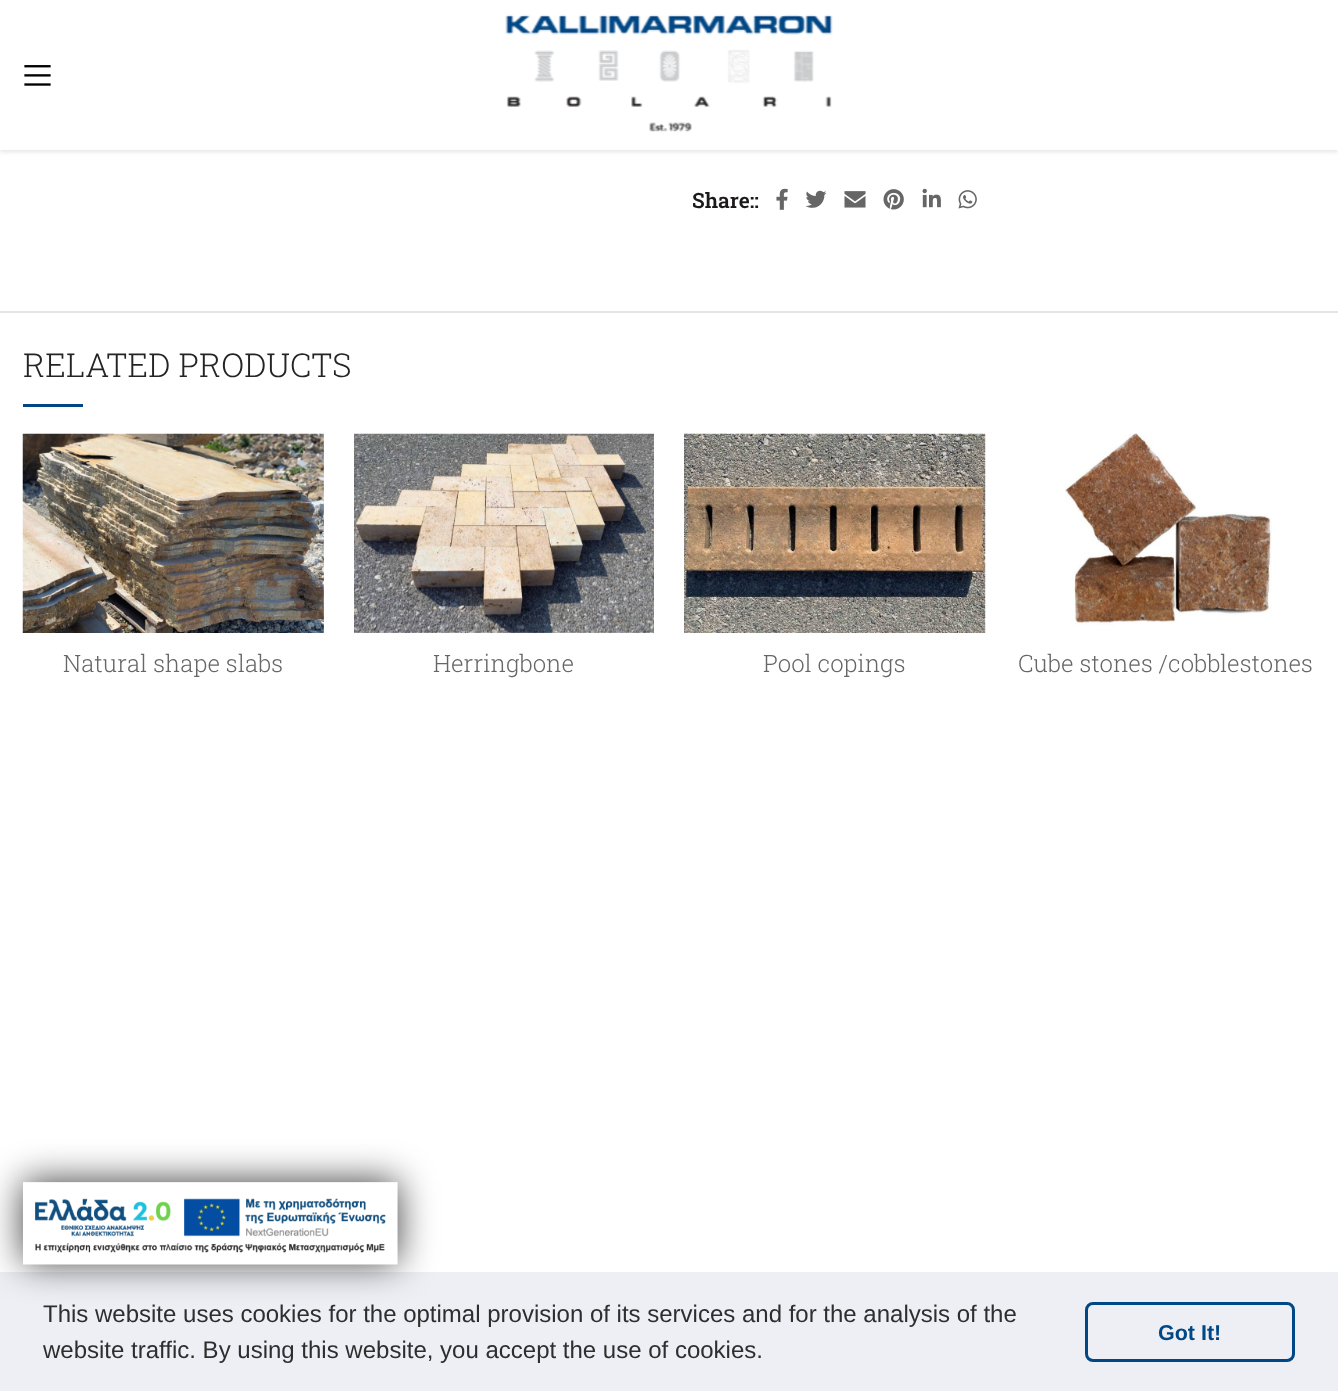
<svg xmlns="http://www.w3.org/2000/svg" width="1338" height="1391">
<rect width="100%" height="100%" fill="#fff"/>
<rect y="2" width="1338" height="150" fill="#0000001a" filter="blur(2px)"/>
<rect width="1338" height="150" fill="#fff"/>
<image x="24" y="65" width="27" height="21" href="media/1.png"/>
<image x="505" y="14" width="328" height="118" href="media/2.png"/>
<text x="692" y="208" style="font-family:Roboto Slab;font-size:21px;font-weight:600;fill:#1b1919">Share::</text>
<image x="776" y="188" width="12" height="22" href="media/3.png"/>
<image x="806" y="190" width="21" height="18" href="media/4.png"/>
<image x="844" y="191" width="22" height="17" href="media/5.png"/>
<image x="883" y="189" width="21" height="21" href="media/6.png"/>
<image x="922" y="188" width="19" height="20" href="media/7.png"/>
<image x="958" y="190" width="19" height="19" href="media/8.png"/>
<rect y="311" width="1338" height="2" fill="#e4e4e4"/>
<text x="23" y="377" style="font-family:Roboto Slab;font-size:33px;font-weight:300;fill:#242424">RELATED PRODUCTS</text>
<rect x="23" y="404" width="60" height="3" fill="#004785"/>
<image x="22" y="433" width="302" height="200" href="media/9.png"/>
<text x="63" y="672" style="font-family:Roboto Slab;font-size:24px;font-weight:300;fill:#666">Natural shape slabs</text>
<image x="354" y="433" width="300" height="200" href="media/10.png"/>
<text x="433" y="672" style="font-family:Roboto Slab;font-size:24px;font-weight:300;fill:#666">Herringbone</text>
<image x="684" y="433" width="302" height="200" href="media/11.png"/>
<text x="763" y="672" style="font-family:Roboto Slab;font-size:24px;font-weight:300;fill:#666">Pool copings</text>
<image x="1065" y="433" width="207" height="193" href="media/12.png"/>
<text x="1018" y="672" style="font-family:Roboto Slab;font-size:24px;font-weight:300;fill:#666">Cube stones /cobblestones</text>
<rect y="1272" width="1338" height="119" fill="#edeff5"/>
<rect x="23" y="1181" width="375" height="82" fill="#000000bf" filter="blur(18px)"/>
<image x="23" y="1182" width="375" height="83" href="media/13.png"/>
<text x="43" y="1322" style="font-family:Liberation Sans;font-size:24px;fill:#2e2e2e">This website uses cookies for the optimal provision of its services and for the analysis of the</text>
<text x="43" y="1358" style="font-family:Liberation Sans;font-size:24px;fill:#2e2e2e">website traffic. By using this website, you accept the use of cookies.</text>
<rect x="1086.5" y="1303.5" width="207" height="57" rx="6.5" fill="none" stroke="#004785" stroke-width="3"/>
<text x="1158" y="1340" style="font-family:Liberation Sans;font-size:21.5px;font-weight:bold;fill:#004785">Got It!</text>
</svg>
